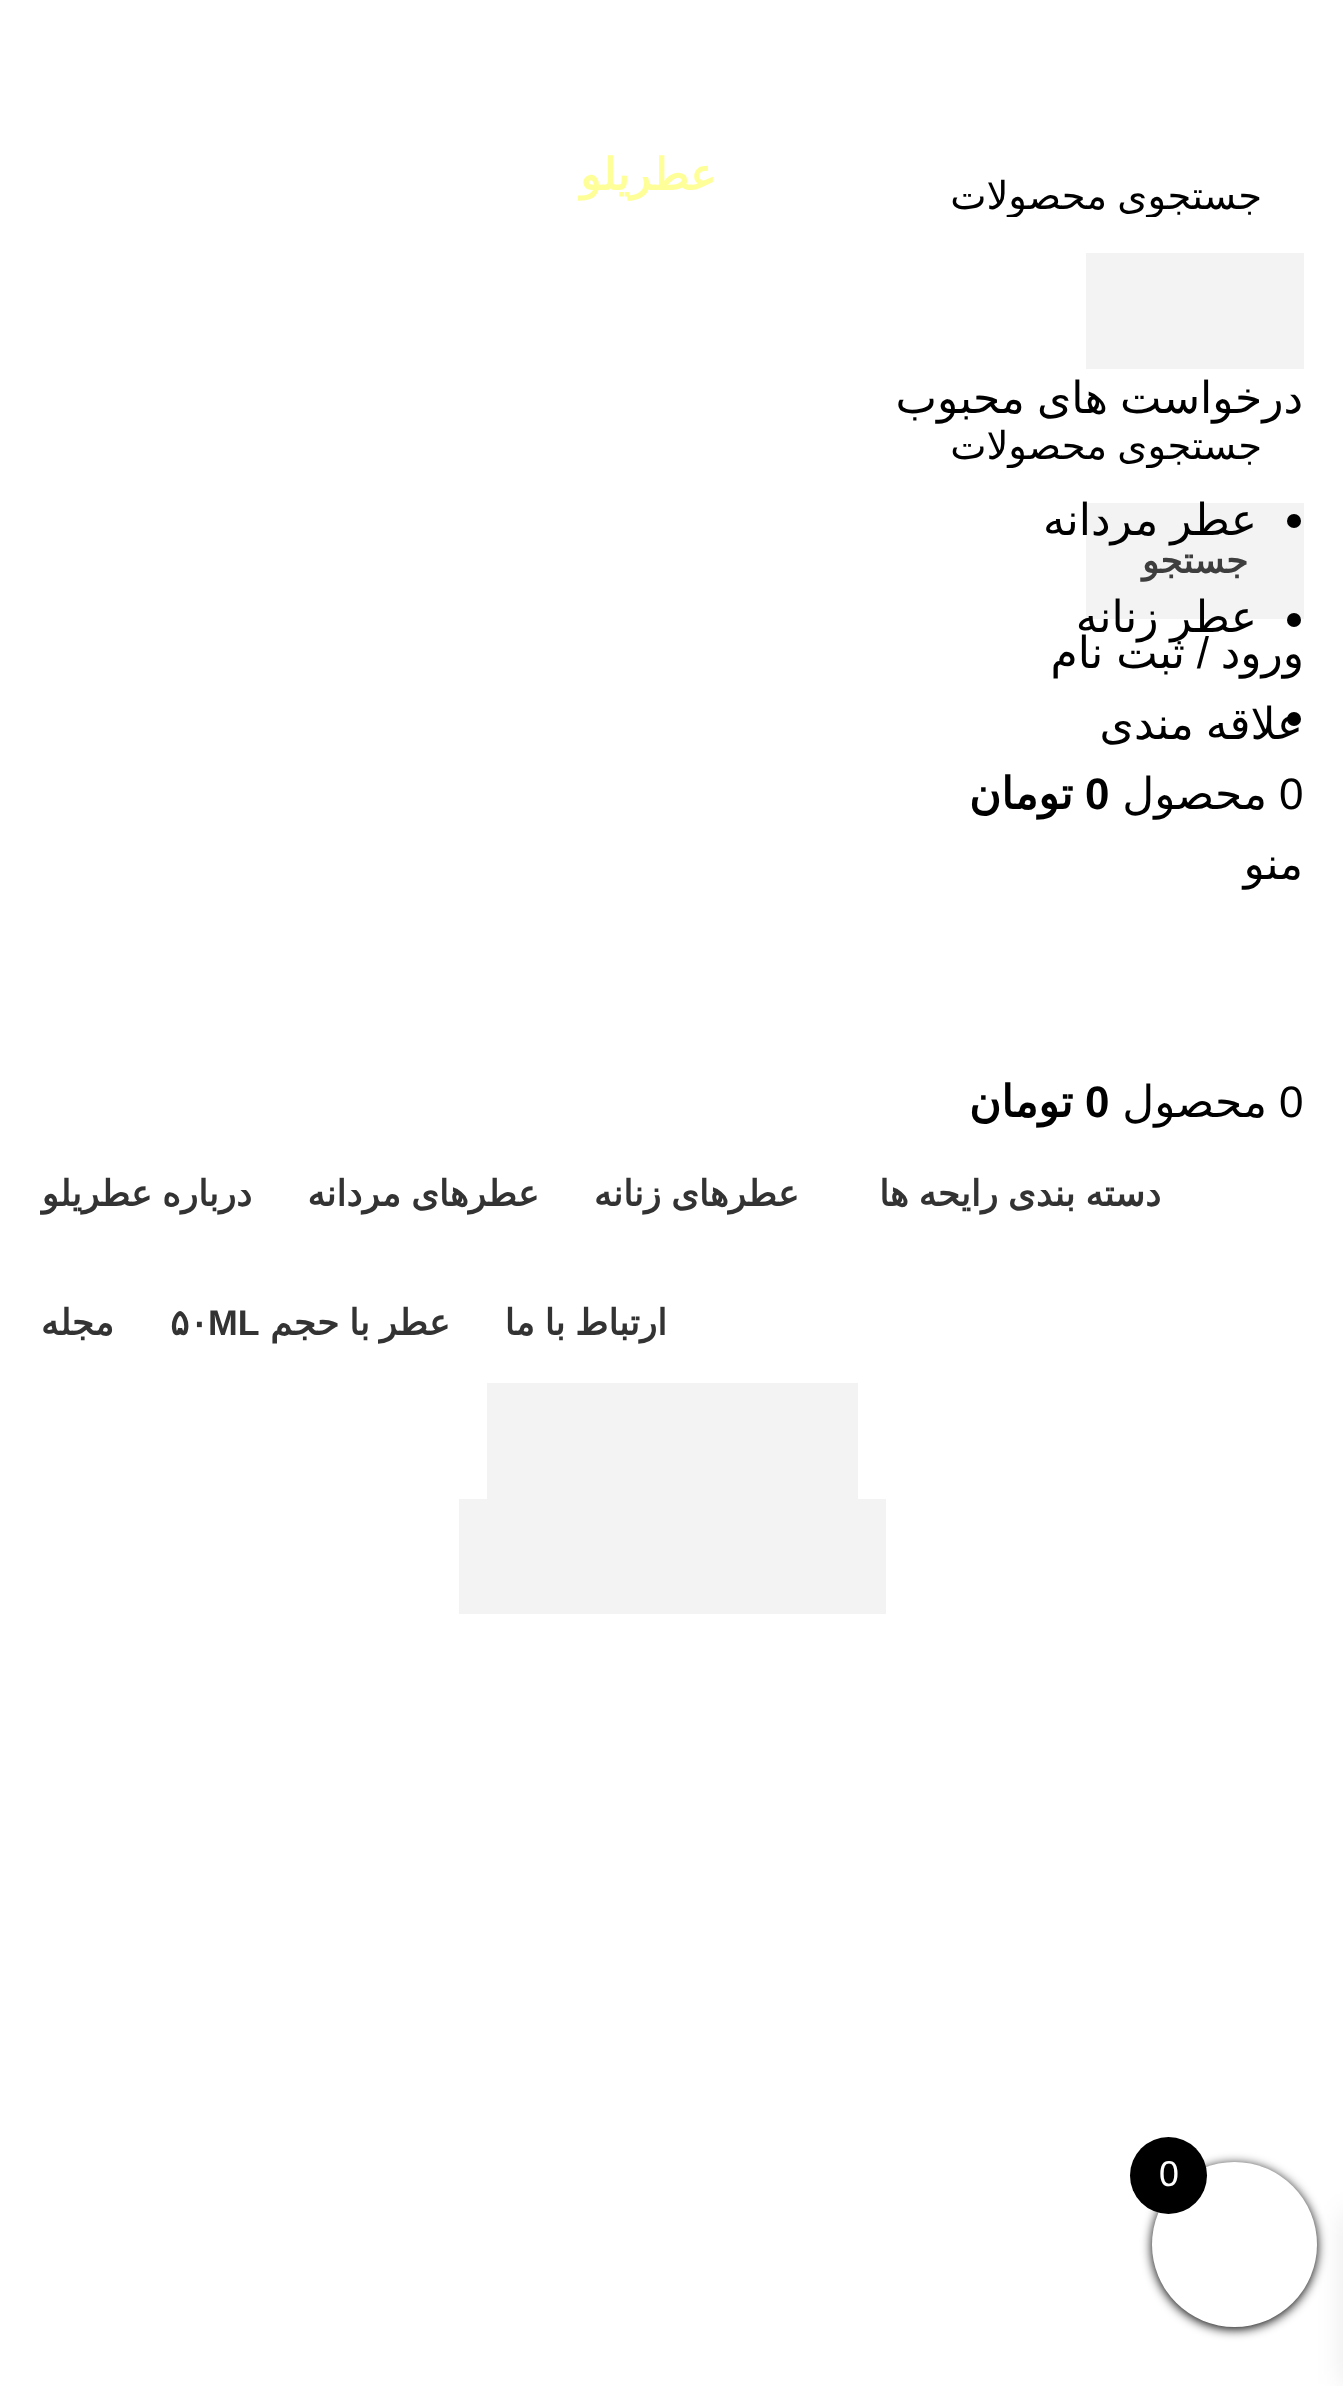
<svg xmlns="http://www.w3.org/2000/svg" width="1343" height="2386">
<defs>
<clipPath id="clip1"><rect x="83" y="424" width="1179" height="44"/></clipPath>
<clipPath id="clip2"><rect x="83" y="173" width="1179" height="44"/></clipPath>
</defs>
<rect width="100%" height="100%" fill="#fff"/>
<text x="716" y="190" style="font-family:DejaVu Sans;font-size:44px;font-weight:bold;direction:rtl;fill:#ff9">عطریلو</text>
<g clip-path="url(#clip1)">
<text x="1262" y="459" word-spacing="-2" style="font-family:DejaVu Sans;font-size:38.5px;direction:rtl;fill:#000">جستجوی محصولات</text>
</g>
<rect x="1086" y="503" width="218" height="116" fill="#f3f3f3"/>
<text x="1248" y="573" style="font-family:DejaVu Sans;font-size:35.75px;font-weight:bold;direction:rtl;fill:#3e3e3e">جستجو</text>
<text x="1304" y="668" style="font-family:DejaVu Sans;font-size:44px;direction:rtl;fill:#000">ورود</text>
<text x="1209" y="668" style="font-family:Liberation Sans;font-size:44px;direction:rtl;fill:#000">/</text>
<text x="1185" y="668" word-spacing="-1" style="font-family:DejaVu Sans;font-size:44px;direction:rtl;fill:#000">ثبت نام</text>
<text x="1303" y="739" word-spacing="-2" style="font-family:DejaVu Sans;font-size:44px;direction:rtl;fill:#000">علاقه مندی</text>
<text x="1279" y="809" style="font-family:Liberation Sans;font-size:44px;fill:#000">0</text>
<text x="1267" y="809" style="font-family:DejaVu Sans;font-size:44px;direction:rtl;fill:#000">محصول</text>
<text x="1085" y="809" style="font-family:Liberation Sans;font-size:44px;font-weight:bold;fill:#000">0</text>
<text x="1073" y="809" style="font-family:DejaVu Sans;font-size:44px;font-weight:bold;direction:rtl;fill:#000">تومان</text>
<text x="1303" y="879" style="font-family:DejaVu Sans;font-size:44px;direction:rtl;fill:#000">منو</text>
<text x="1279" y="1117" style="font-family:Liberation Sans;font-size:44px;fill:#000">0</text>
<text x="1267" y="1117" style="font-family:DejaVu Sans;font-size:44px;direction:rtl;fill:#000">محصول</text>
<text x="1085" y="1117" style="font-family:Liberation Sans;font-size:44px;font-weight:bold;fill:#000">0</text>
<text x="1073" y="1117" style="font-family:DejaVu Sans;font-size:44px;font-weight:bold;direction:rtl;fill:#000">تومان</text>
<text x="1161" y="1206" word-spacing="-1.5" style="font-family:DejaVu Sans;font-size:35.75px;font-weight:bold;direction:rtl;fill:#333">دسته بندی رایحه ها</text>
<text x="799" y="1206" word-spacing="-1.5" style="font-family:DejaVu Sans;font-size:35.75px;font-weight:bold;direction:rtl;fill:#333">عطرهای زنانه</text>
<text x="539" y="1206" word-spacing="-1.5" style="font-family:DejaVu Sans;font-size:35.75px;font-weight:bold;direction:rtl;fill:#333">عطرهای مردانه</text>
<text x="252" y="1206" word-spacing="-1.5" style="font-family:DejaVu Sans;font-size:35.75px;font-weight:bold;direction:rtl;fill:#333">درباره عطریلو</text>
<text x="667" y="1335" word-spacing="-1.5" style="font-family:DejaVu Sans;font-size:35.75px;font-weight:bold;direction:rtl;fill:#333">ارتباط با ما</text>
<text x="450" y="1335" word-spacing="-1.5" style="font-family:DejaVu Sans;font-size:35.75px;font-weight:bold;direction:rtl;fill:#333">عطر با حجم</text>
<text x="208" y="1335" style="font-family:Liberation Sans;font-size:35.75px;font-weight:bold;fill:#333">ML</text>
<text x="170" y="1335" style="font-family:DejaVu Sans;font-size:35.75px;font-weight:bold;fill:#333">۵۰</text>
<text x="114" y="1335" style="font-family:DejaVu Sans;font-size:35.75px;font-weight:bold;direction:rtl;fill:#333">مجله</text>
<rect x="487" y="1383" width="371" height="116" fill="#f3f3f3"/>
<rect x="459" y="1499" width="427" height="115" fill="#f3f3f3"/>
<g clip-path="url(#clip2)">
<text x="1262" y="209" word-spacing="-2" style="font-family:DejaVu Sans;font-size:38.5px;direction:rtl;fill:#000">جستجوی محصولات</text>
</g>
<rect x="1086" y="253" width="218" height="116" fill="#f3f3f3"/>
<text x="1303" y="413" word-spacing="-2" style="font-family:DejaVu Sans;font-size:44px;direction:rtl;fill:#000">درخواست های محبوب</text>
<circle cx="1294" cy="521" r="7" fill="#000"/>
<text x="1257" y="535" word-spacing="-2" style="font-family:DejaVu Sans;font-size:44px;direction:rtl;fill:#000">عطر مردانه</text>
<circle cx="1294" cy="620" r="7" fill="#000"/>
<text x="1257" y="632" word-spacing="-2" style="font-family:DejaVu Sans;font-size:44px;direction:rtl;fill:#000">عطر زنانه</text>
<circle cx="1294" cy="719" r="7" fill="#000"/>
<rect x="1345" y="2214" width="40" height="170" fill="#0000001a" filter="blur(14px)"/>
<rect x="1152" y="2164" width="165" height="165" rx="82.5" fill="#000" filter="blur(5.5px)"/>
<circle cx="1234.5" cy="2244.5" r="82.5" fill="#fff"/>
<circle cx="1168.5" cy="2175.5" r="38.5" fill="#000"/>
<text x="1159" y="2186" style="font-family:Liberation Sans;font-size:35.75px;fill:#fff">0</text>
</svg>
